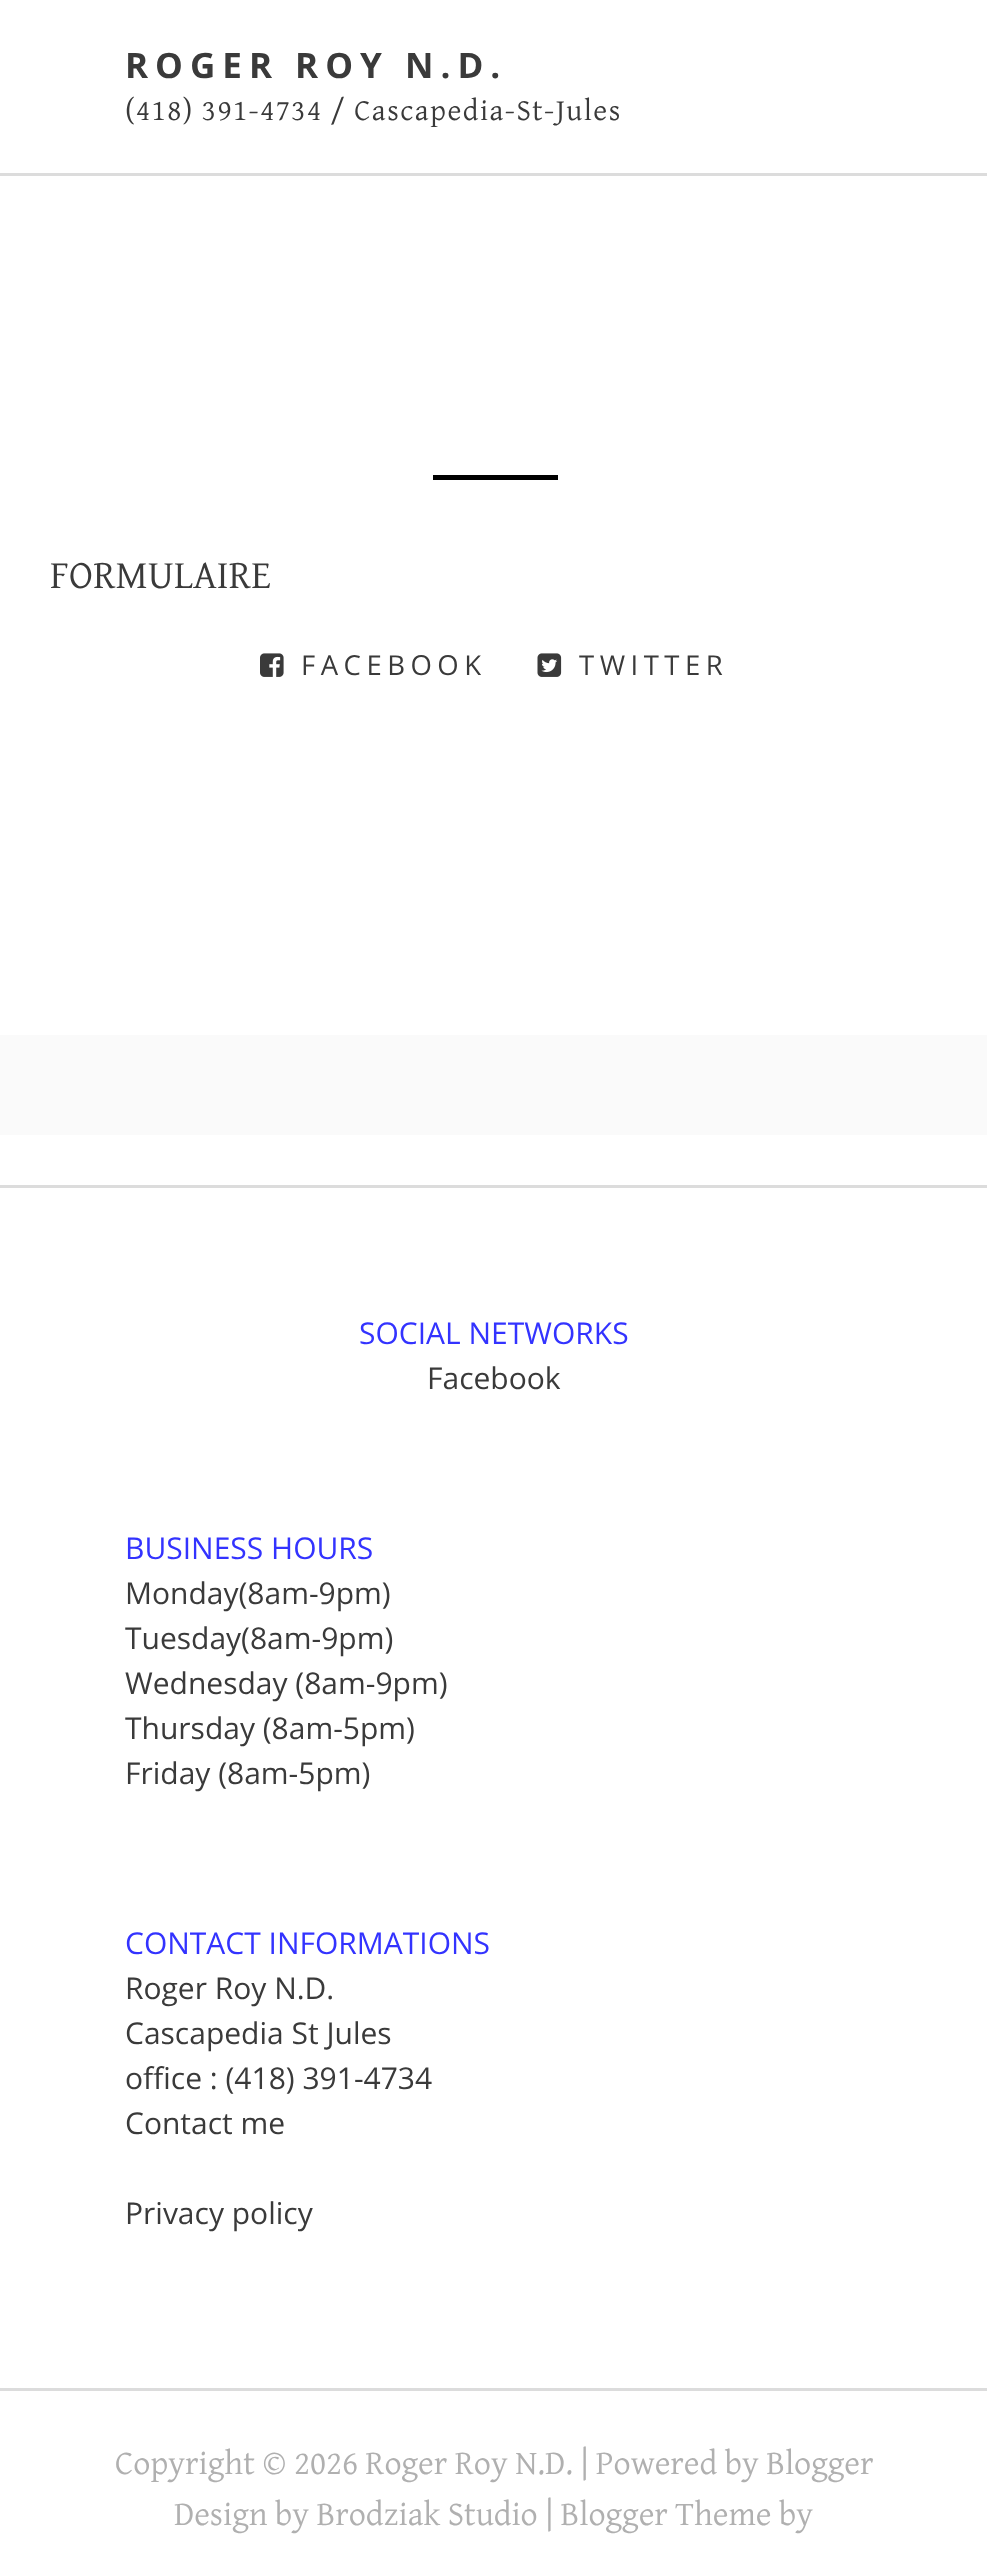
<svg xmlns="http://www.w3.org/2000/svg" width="987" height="2557">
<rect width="100%" height="100%" fill="#fff"/>
<rect y="173" width="987" height="3" fill="#dcdcdc"/>
<text x="125" y="78" style="font-family:Open Sans;font-size:35px;font-weight:bold;letter-spacing:7px;fill:#3a3a3a">ROGER ROY N.D.</text>
<text x="125" y="120" style="font-family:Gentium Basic;font-size:30px;letter-spacing:1.5px;fill:#3a3a3a">(418) 391-4734 / Cascapedia-St-Jules</text>
<rect x="433" y="475" width="125" height="5" fill="#000"/>
<text x="50" y="588" style="font-family:Gentium Basic;font-size:40px;fill:#3a3a3a">FORMULAIRE</text>
<image x="260" y="653" width="24" height="24" href="media/1.png"/>
<text x="301" y="675" style="font-family:Open Sans;font-size:27.5px;letter-spacing:5.5px;fill:#3a3a3a">FACEBOOK</text>
<image x="537" y="653" width="25" height="24" href="media/2.png"/>
<text x="579" y="675" style="font-family:Open Sans;font-size:27.5px;letter-spacing:5.5px;fill:#3a3a3a">TWITTER</text>
<rect y="1035" width="987" height="100" fill="#fafafa"/>
<rect y="1185" width="987" height="3" fill="#dcdcdc"/>
<rect y="2388" width="987" height="3" fill="#dcdcdc"/>
<text x="359" y="1344" style="font-family:Open Sans;font-size:30px;fill:#33f">SOCIAL NETWORKS</text>
<text x="427" y="1389" style="font-family:Open Sans;font-size:30px;fill:#3a3a3a">Facebook</text>
<text x="125" y="1559" style="font-family:Open Sans;font-size:30px;fill:#33f">BUSINESS HOURS</text>
<text x="125" y="1604" style="font-family:Open Sans;font-size:30px;fill:#3a3a3a">Monday(8am-9pm)</text>
<text x="125" y="1649" style="font-family:Open Sans;font-size:30px;fill:#3a3a3a">Tuesday(8am-9pm)</text>
<text x="125" y="1694" style="font-family:Open Sans;font-size:30px;fill:#3a3a3a">Wednesday (8am-9pm)</text>
<text x="125" y="1739" style="font-family:Open Sans;font-size:30px;fill:#3a3a3a">Thursday (8am-5pm)</text>
<text x="125" y="1784" style="font-family:Open Sans;font-size:30px;fill:#3a3a3a">Friday (8am-5pm)</text>
<text x="125" y="1954" style="font-family:Open Sans;font-size:30px;fill:#33f">CONTACT INFORMATIONS</text>
<text x="125" y="1999" style="font-family:Open Sans;font-size:30px;fill:#3a3a3a">Roger Roy N.D.</text>
<text x="125" y="2044" style="font-family:Open Sans;font-size:30px;fill:#3a3a3a">Cascapedia St Jules</text>
<text x="125" y="2089" style="font-family:Open Sans;font-size:30px;fill:#3a3a3a">office : (418) 391-4734</text>
<text x="125" y="2134" style="font-family:Open Sans;font-size:30px;fill:#3a3a3a">Contact me</text>
<text x="125" y="2224" style="font-family:Open Sans;font-size:30px;fill:#3a3a3a">Privacy policy</text>
<text x="115" y="2474" style="font-family:Gentium Basic;font-size:34px;fill:#b0b0b0">Copyright © 2026 Roger Roy N.D. | Powered by Blogger</text>
<text x="174" y="2525" style="font-family:Gentium Basic;font-size:34px;fill:#b0b0b0">Design by Brodziak Studio | Blogger Theme by</text>
</svg>
